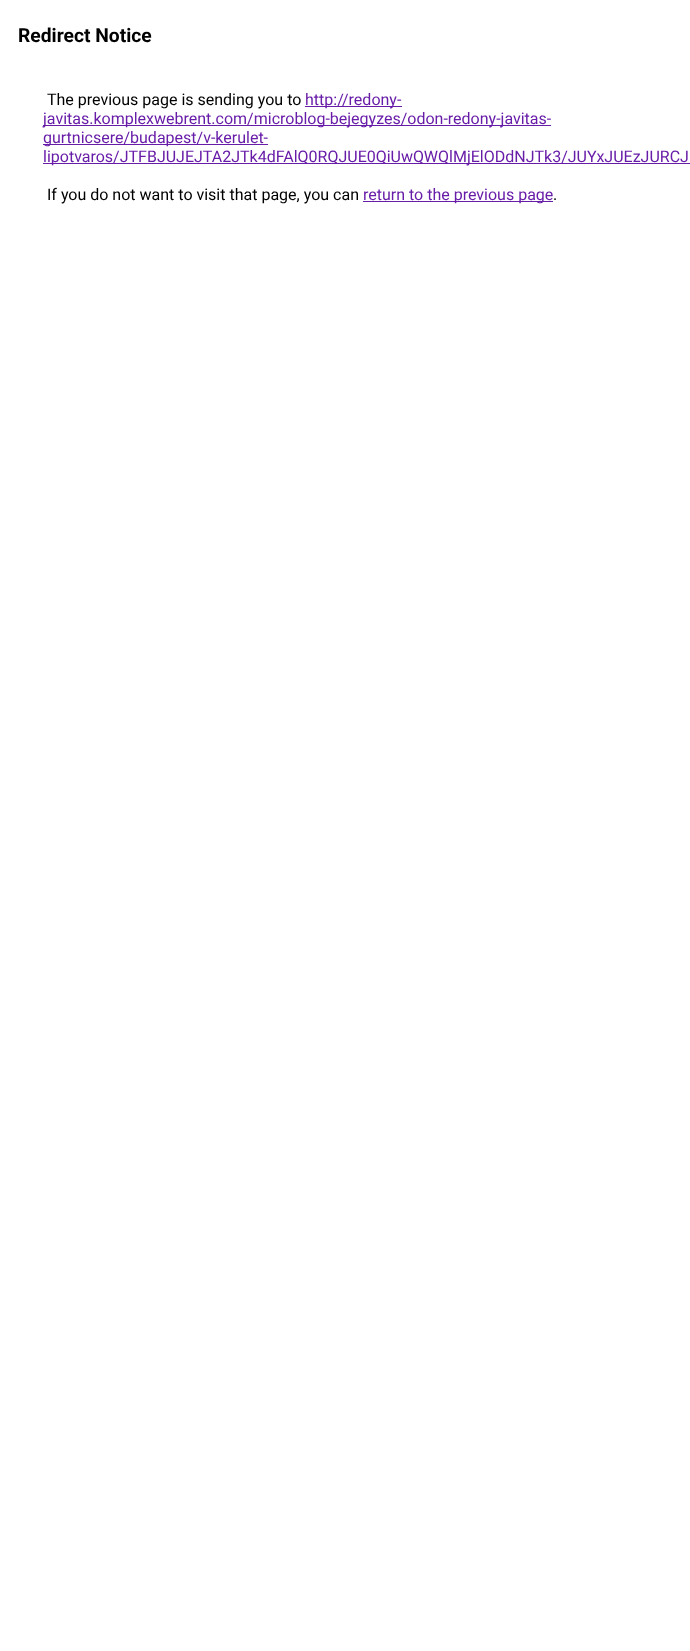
<svg xmlns="http://www.w3.org/2000/svg" width="690" height="1651">
<rect width="100%" height="100%" fill="#fff"/>
<text x="18" y="42" style="font-family:Roboto;font-size:19.25px;font-weight:bold;fill:#000">Redirect Notice</text>
<text x="47" y="105" style="font-family:Roboto;font-size:16px;fill:#000">The previous page is sending you to</text>
<rect x="305" y="106" width="97" height="1" fill="#681da8"/>
<text x="305" y="105" style="font-family:Roboto;font-size:16px;fill:#681da8">http://redony-</text>
<rect x="43" y="125" width="508" height="1" fill="#681da8"/>
<text x="43" y="124" style="font-family:Roboto;font-size:16px;fill:#681da8">javitas.komplexwebrent.com/microblog-bejegyzes/odon-redony-javitas-</text>
<rect x="43" y="144" width="225" height="1" fill="#681da8"/>
<text x="43" y="143" style="font-family:Roboto;font-size:16px;fill:#681da8">gurtnicsere/budapest/v-kerulet-</text>
<rect x="43" y="163" width="647" height="1" fill="#681da8"/>
<text x="43" y="162" style="font-family:Roboto;font-size:16px;fill:#681da8">lipotvaros/JTFBJUJEJTA2JTk4dFAlQ0RQJUE0QiUwQWQlMjElODdNJTk3/JUYxJUEzJURCJ</text>
<text x="47" y="200" style="font-family:Roboto;font-size:16px;fill:#000">If you do not want to visit that page, you can</text>
<rect x="363" y="201" width="190" height="1" fill="#681da8"/>
<text x="363" y="200" style="font-family:Roboto;font-size:16px;fill:#681da8">return to the previous page</text>
<text x="553" y="200" style="font-family:Roboto;font-size:16px;fill:#000">.</text>
</svg>
